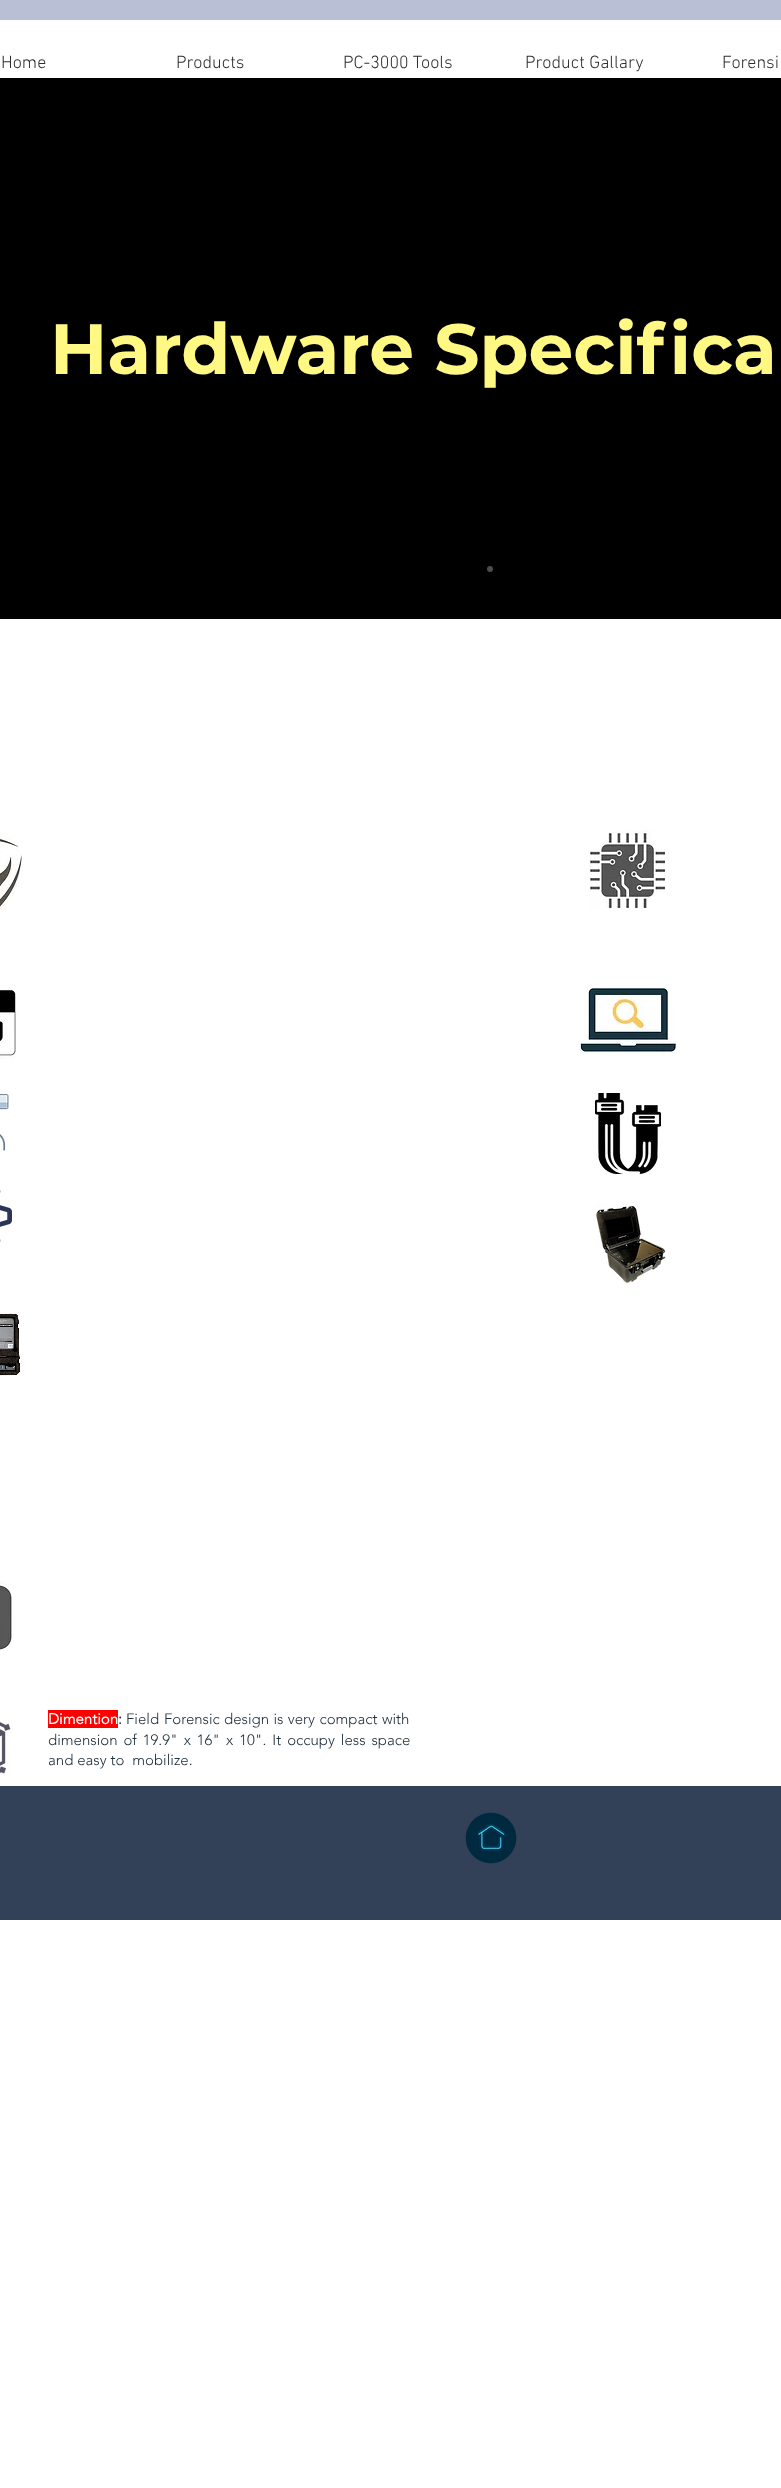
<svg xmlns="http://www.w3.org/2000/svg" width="781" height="2488">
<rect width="100%" height="100%" fill="#fff"/>
<rect width="781" height="20" fill="#b9c0d5"/>
<text x="1" y="68" style="font-family:'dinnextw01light';font-size:18px;font-weight:300;fill:#2f2e2e">Home</text>
<text x="176" y="68" style="font-family:'dinnextw01light';font-size:18px;font-weight:300;fill:#2f2e2e">Products</text>
<text x="343" y="68" style="font-family:'dinnextw01light';font-size:18px;font-weight:300;fill:#2f2e2e">PC-3000 Tools</text>
<text x="525" y="68" style="font-family:'dinnextw01light';font-size:18px;font-weight:300;fill:#2f2e2e">Product Gallary</text>
<text x="722" y="68" style="font-family:'dinnextw01light';font-size:18px;font-weight:300;fill:#2f2e2e">Forensi</text>
<rect y="78" width="781" height="541" fill="#000"/>
<text x="50" y="374" style="font-family:Montserrat;font-size:71px;font-weight:bold;fill:#fff882">Hardware Specifica</text>
<circle cx="490" cy="569" r="3" fill="#4d4d4d"/>
<image x="0" y="838" width="23" height="72" href="media/1.png"/>
<image x="589" y="830" width="76" height="80" href="media/2.png"/>
<image x="0" y="987" width="17" height="72" href="media/3.png"/>
<image x="579" y="984" width="98" height="71" href="media/4.png"/>
<image x="0" y="1094" width="9" height="57" href="media/5.png"/>
<image x="595" y="1093" width="66" height="81" href="media/6.png"/>
<image x="0" y="1190" width="12" height="52" href="media/7.png"/>
<image x="596" y="1206" width="70" height="77" href="media/8.png"/>
<image x="0" y="1313" width="20" height="63" href="media/9.png"/>
<image x="0" y="1582" width="12" height="68" href="media/10.png"/>
<image x="0" y="1722" width="11" height="53" href="media/11.png"/>
<rect x="48" y="1710" width="70" height="18" fill="#f00"/>
<text x="48" y="1724" style="font-family:'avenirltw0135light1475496';font-size:15px;font-weight:bold;fill:#fff">Dimention</text>
<text x="118" y="1724" style="font-family:'avenirltw0135light1475496';font-size:15px;font-weight:bold;fill:#20303c">:</text>
<text x="126" y="1724" word-spacing="1" style="font-family:'avenirltw0135light1475496';font-size:15px;font-weight:300;fill:#20303c">Field Forensic</text>
<text x="224" y="1724" word-spacing="0.5" style="font-family:'avenirltw0135light1475496';font-size:15px;font-weight:300;fill:#20303c">design is very compact with</text>
<text x="48" y="1745" word-spacing="2" style="font-family:'avenirltw0135light1475496';font-size:15px;font-weight:300;fill:#20303c">dimension of 19.9" x 16" x 10". It occupy less space</text>
<text x="48" y="1765" style="font-family:'avenirltw0135light1475496';font-size:15px;font-weight:300;fill:#20303c" xml:space="preserve">and easy to  mobilize.</text>
<rect y="1786" width="781" height="134" fill="#324158"/>
<image x="465" y="1812" width="52" height="52" href="media/12.png"/>
</svg>
